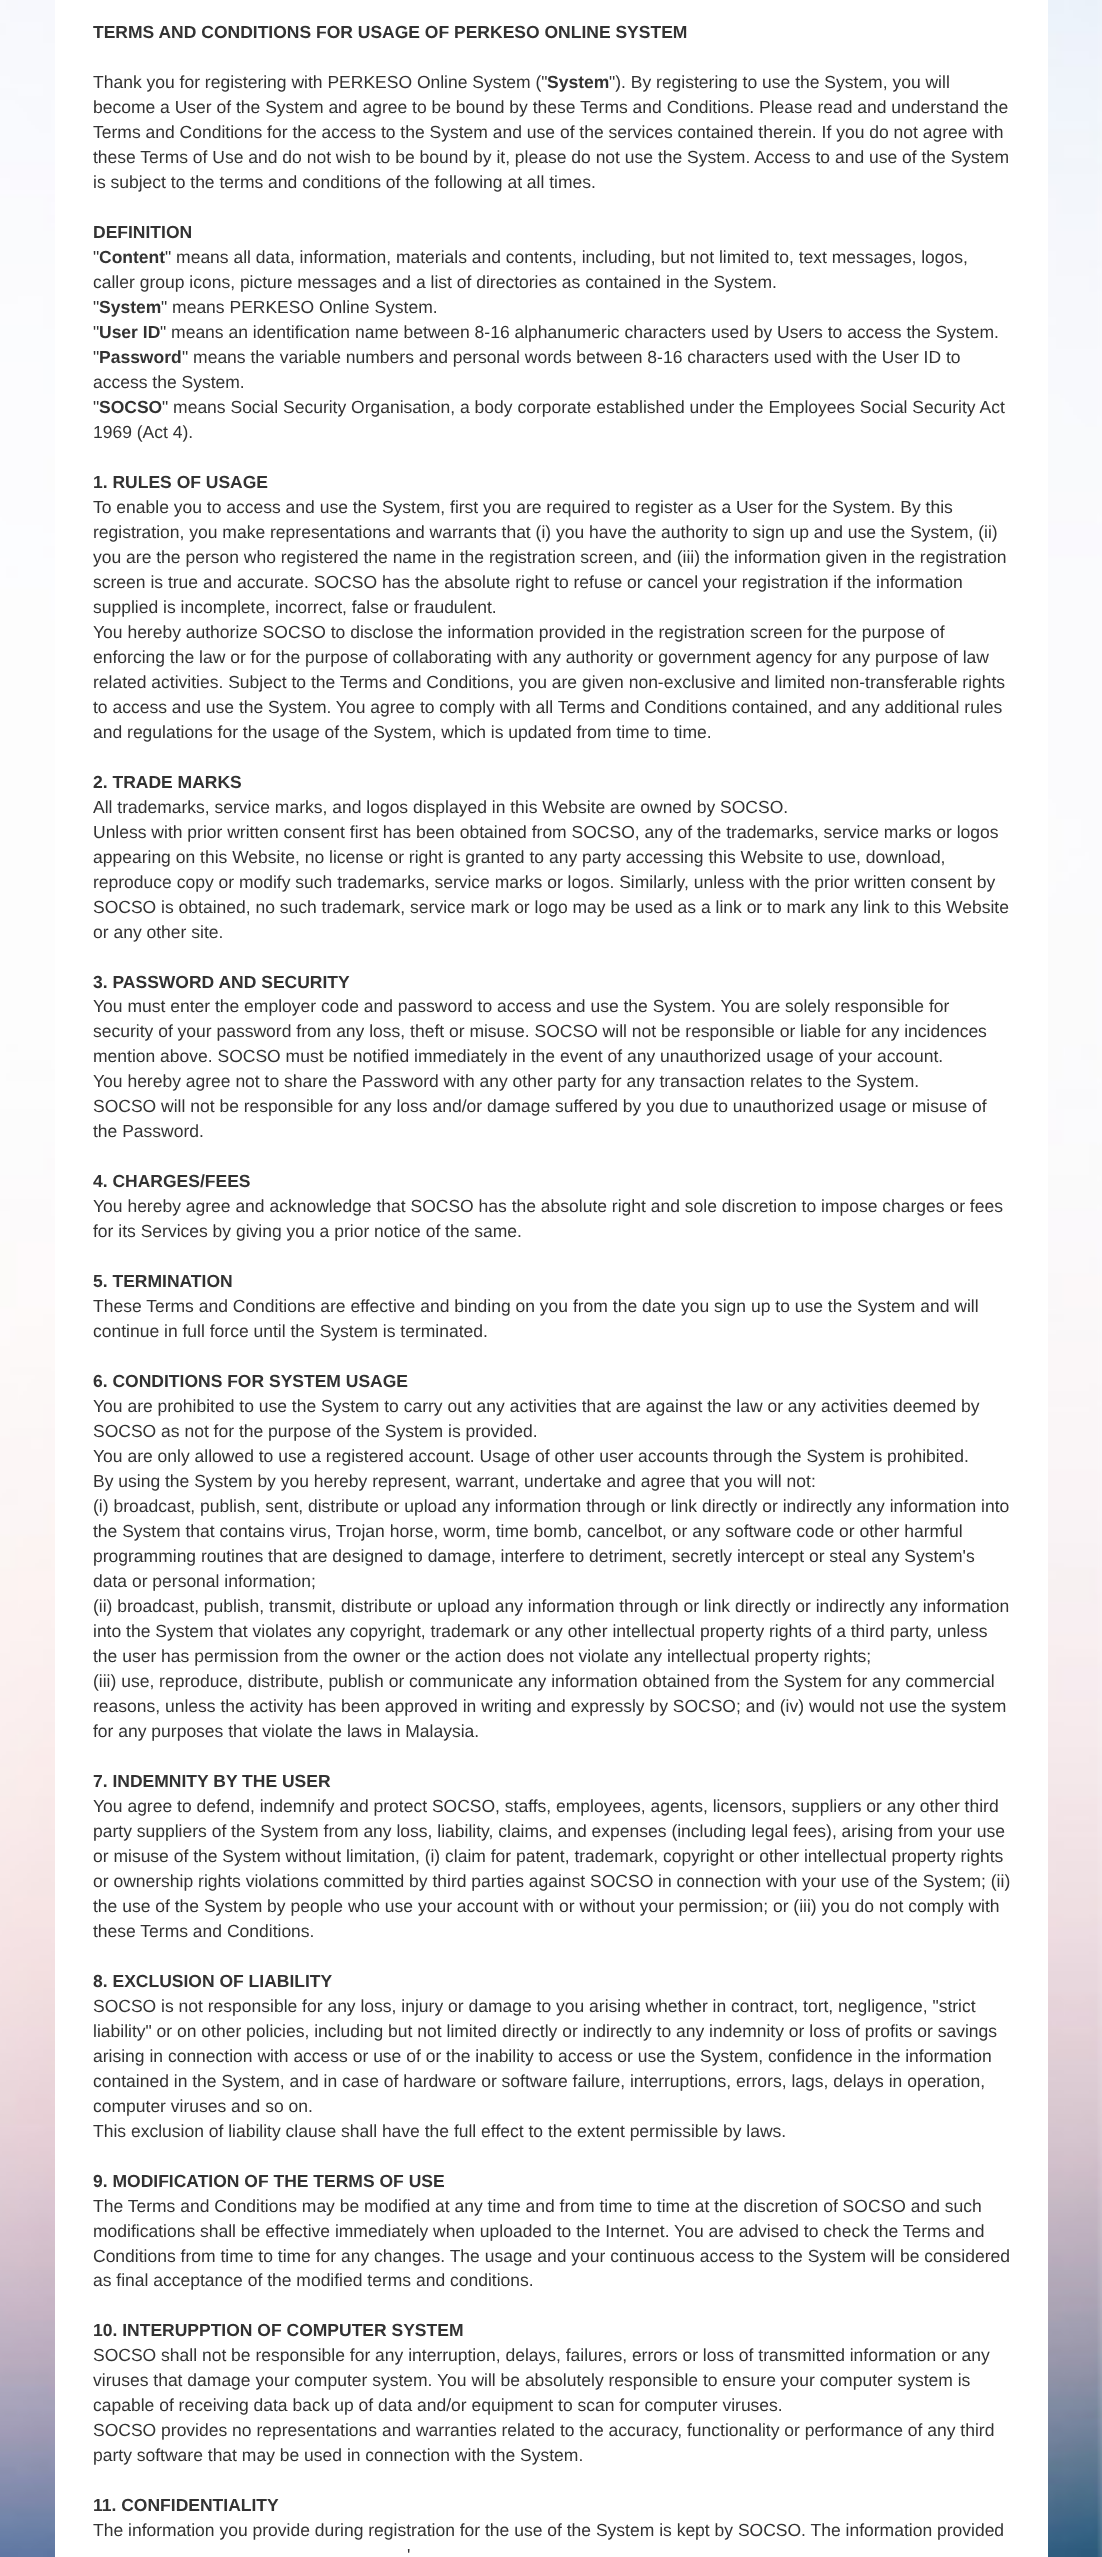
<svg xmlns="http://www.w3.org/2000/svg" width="1102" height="2557">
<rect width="100%" height="100%" fill="#fff"/>
<image x="0" y="0" width="1102" height="2557" href="media/1.png"/>
<rect x="55" width="993" height="2557" fill="#fff"/>
<text x="93" y="38" style="font-family:Liberation Sans;font-size:17.5px;font-weight:bold;fill:#333">TERMS AND CONDITIONS FOR USAGE OF PERKESO ONLINE SYSTEM</text>
<text x="93" y="88" style="font-family:Liberation Sans;font-size:17.5px;fill:#333">Thank you for registering with PERKESO Online System ("</text>
<text x="547" y="88" style="font-family:Liberation Sans;font-size:17.5px;font-weight:bold;fill:#333">System</text>
<text x="609" y="88" style="font-family:Liberation Sans;font-size:17.5px;fill:#333">"). By registering to use the System, you will</text>
<text x="93" y="113" style="font-family:Liberation Sans;font-size:17.5px;fill:#333">become a User of the System and agree to be bound by these Terms and Conditions. Please read and understand the</text>
<text x="93" y="138" style="font-family:Liberation Sans;font-size:17.5px;fill:#333">Terms and Conditions for the access to the System and use of the services contained therein. If you do not agree with</text>
<text x="93" y="163" style="font-family:Liberation Sans;font-size:17.5px;fill:#333">these Terms of Use and do not wish to be bound by it, please do not use the System. Access to and use of the System</text>
<text x="93" y="188" style="font-family:Liberation Sans;font-size:17.5px;fill:#333">is subject to the terms and conditions of the following at all times.</text>
<text x="93" y="238" style="font-family:Liberation Sans;font-size:17.5px;font-weight:bold;fill:#333">DEFINITION</text>
<text x="93" y="263" style="font-family:Liberation Sans;font-size:17.5px;fill:#333">"</text>
<text x="99" y="263" style="font-family:Liberation Sans;font-size:17.5px;font-weight:bold;fill:#333">Content</text>
<text x="165" y="263" style="font-family:Liberation Sans;font-size:17.5px;fill:#333">" means all data, information, materials and contents, including, but not limited to, text messages, logos,</text>
<text x="93" y="288" style="font-family:Liberation Sans;font-size:17.5px;fill:#333">caller group icons, picture messages and a list of directories as contained in the System.</text>
<text x="93" y="313" style="font-family:Liberation Sans;font-size:17.5px;fill:#333">"</text>
<text x="99" y="313" style="font-family:Liberation Sans;font-size:17.5px;font-weight:bold;fill:#333">System</text>
<text x="161" y="313" style="font-family:Liberation Sans;font-size:17.5px;fill:#333">" means PERKESO Online System.</text>
<text x="93" y="338" style="font-family:Liberation Sans;font-size:17.5px;fill:#333">"</text>
<text x="99" y="338" style="font-family:Liberation Sans;font-size:17.5px;font-weight:bold;fill:#333">User ID</text>
<text x="160" y="338" style="font-family:Liberation Sans;font-size:17.5px;fill:#333">" means an identification name between 8-16 alphanumeric characters used by Users to access the System.</text>
<text x="93" y="363" style="font-family:Liberation Sans;font-size:17.5px;fill:#333">"</text>
<text x="99" y="363" style="font-family:Liberation Sans;font-size:17.5px;font-weight:bold;fill:#333">Password</text>
<text x="182" y="363" style="font-family:Liberation Sans;font-size:17.5px;fill:#333">" means the variable numbers and personal words between 8-16 characters used with the User ID to</text>
<text x="93" y="388" style="font-family:Liberation Sans;font-size:17.5px;fill:#333">access the System.</text>
<text x="93" y="413" style="font-family:Liberation Sans;font-size:17.5px;fill:#333">"</text>
<text x="99" y="413" style="font-family:Liberation Sans;font-size:17.5px;font-weight:bold;fill:#333">SOCSO</text>
<text x="162" y="413" style="font-family:Liberation Sans;font-size:17.5px;fill:#333">" means Social Security Organisation, a body corporate established under the Employees Social Security Act</text>
<text x="93" y="438" style="font-family:Liberation Sans;font-size:17.5px;fill:#333">1969 (Act 4).</text>
<text x="93" y="488" style="font-family:Liberation Sans;font-size:17.5px;font-weight:bold;fill:#333">1. RULES OF USAGE</text>
<text x="93" y="513" style="font-family:Liberation Sans;font-size:17.5px;fill:#333">To enable you to access and use the System, first you are required to register as a User for the System. By this</text>
<text x="93" y="538" style="font-family:Liberation Sans;font-size:17.5px;fill:#333">registration, you make representations and warrants that (i) you have the authority to sign up and use the System, (ii)</text>
<text x="93" y="563" style="font-family:Liberation Sans;font-size:17.5px;fill:#333">you are the person who registered the name in the registration screen, and (iii) the information given in the registration</text>
<text x="93" y="588" style="font-family:Liberation Sans;font-size:17.5px;fill:#333">screen is true and accurate. SOCSO has the absolute right to refuse or cancel your registration if the information</text>
<text x="93" y="613" style="font-family:Liberation Sans;font-size:17.5px;fill:#333">supplied is incomplete, incorrect, false or fraudulent.</text>
<text x="93" y="638" style="font-family:Liberation Sans;font-size:17.5px;fill:#333">You hereby authorize SOCSO to disclose the information provided in the registration screen for the purpose of</text>
<text x="93" y="663" style="font-family:Liberation Sans;font-size:17.5px;fill:#333">enforcing the law or for the purpose of collaborating with any authority or government agency for any purpose of law</text>
<text x="93" y="688" style="font-family:Liberation Sans;font-size:17.5px;fill:#333">related activities. Subject to the Terms and Conditions, you are given non-exclusive and limited non-transferable rights</text>
<text x="93" y="713" style="font-family:Liberation Sans;font-size:17.5px;fill:#333">to access and use the System. You agree to comply with all Terms and Conditions contained, and any additional rules</text>
<text x="93" y="738" style="font-family:Liberation Sans;font-size:17.5px;fill:#333">and regulations for the usage of the System, which is updated from time to time.</text>
<text x="93" y="788" style="font-family:Liberation Sans;font-size:17.5px;font-weight:bold;fill:#333">2. TRADE MARKS</text>
<text x="93" y="813" style="font-family:Liberation Sans;font-size:17.5px;fill:#333">All trademarks, service marks, and logos displayed in this Website are owned by SOCSO.</text>
<text x="93" y="838" style="font-family:Liberation Sans;font-size:17.5px;fill:#333">Unless with prior written consent first has been obtained from SOCSO, any of the trademarks, service marks or logos</text>
<text x="93" y="863" style="font-family:Liberation Sans;font-size:17.5px;fill:#333">appearing on this Website, no license or right is granted to any party accessing this Website to use, download,</text>
<text x="93" y="888" style="font-family:Liberation Sans;font-size:17.5px;fill:#333">reproduce copy or modify such trademarks, service marks or logos. Similarly, unless with the prior written consent by</text>
<text x="93" y="913" style="font-family:Liberation Sans;font-size:17.5px;fill:#333">SOCSO is obtained, no such trademark, service mark or logo may be used as a link or to mark any link to this Website</text>
<text x="93" y="938" style="font-family:Liberation Sans;font-size:17.5px;fill:#333">or any other site.</text>
<text x="93" y="988" style="font-family:Liberation Sans;font-size:17.5px;font-weight:bold;fill:#333">3. PASSWORD AND SECURITY</text>
<text x="93" y="1012" style="font-family:Liberation Sans;font-size:17.5px;fill:#333">You must enter the employer code and password to access and use the System. You are solely responsible for</text>
<text x="93" y="1037" style="font-family:Liberation Sans;font-size:17.5px;fill:#333">security of your password from any loss, theft or misuse. SOCSO will not be responsible or liable for any incidences</text>
<text x="93" y="1062" style="font-family:Liberation Sans;font-size:17.5px;fill:#333">mention above. SOCSO must be notified immediately in the event of any unauthorized usage of your account.</text>
<text x="93" y="1087" style="font-family:Liberation Sans;font-size:17.5px;fill:#333">You hereby agree not to share the Password with any other party for any transaction relates to the System.</text>
<text x="93" y="1112" style="font-family:Liberation Sans;font-size:17.5px;fill:#333">SOCSO will not be responsible for any loss and/or damage suffered by you due to unauthorized usage or misuse of</text>
<text x="93" y="1137" style="font-family:Liberation Sans;font-size:17.5px;fill:#333">the Password.</text>
<text x="93" y="1187" style="font-family:Liberation Sans;font-size:17.5px;font-weight:bold;fill:#333">4. CHARGES/FEES</text>
<text x="93" y="1212" style="font-family:Liberation Sans;font-size:17.5px;fill:#333">You hereby agree and acknowledge that SOCSO has the absolute right and sole discretion to impose charges or fees</text>
<text x="93" y="1237" style="font-family:Liberation Sans;font-size:17.5px;fill:#333">for its Services by giving you a prior notice of the same.</text>
<text x="93" y="1287" style="font-family:Liberation Sans;font-size:17.5px;font-weight:bold;fill:#333">5. TERMINATION</text>
<text x="93" y="1312" style="font-family:Liberation Sans;font-size:17.5px;fill:#333">These Terms and Conditions are effective and binding on you from the date you sign up to use the System and will</text>
<text x="93" y="1337" style="font-family:Liberation Sans;font-size:17.5px;fill:#333">continue in full force until the System is terminated.</text>
<text x="93" y="1387" style="font-family:Liberation Sans;font-size:17.5px;font-weight:bold;fill:#333">6. CONDITIONS FOR SYSTEM USAGE</text>
<text x="93" y="1412" style="font-family:Liberation Sans;font-size:17.5px;fill:#333">You are prohibited to use the System to carry out any activities that are against the law or any activities deemed by</text>
<text x="93" y="1437" style="font-family:Liberation Sans;font-size:17.5px;fill:#333">SOCSO as not for the purpose of the System is provided.</text>
<text x="93" y="1462" style="font-family:Liberation Sans;font-size:17.5px;fill:#333">You are only allowed to use a registered account. Usage of other user accounts through the System is prohibited.</text>
<text x="93" y="1487" style="font-family:Liberation Sans;font-size:17.5px;fill:#333">By using the System by you hereby represent, warrant, undertake and agree that you will not:</text>
<text x="93" y="1512" style="font-family:Liberation Sans;font-size:17.5px;fill:#333">(i) broadcast, publish, sent, distribute or upload any information through or link directly or indirectly any information into</text>
<text x="93" y="1537" style="font-family:Liberation Sans;font-size:17.5px;fill:#333">the System that contains virus, Trojan horse, worm, time bomb, cancelbot, or any software code or other harmful</text>
<text x="93" y="1562" style="font-family:Liberation Sans;font-size:17.5px;fill:#333">programming routines that are designed to damage, interfere to detriment, secretly intercept or steal any System's</text>
<text x="93" y="1587" style="font-family:Liberation Sans;font-size:17.5px;fill:#333">data or personal information;</text>
<text x="93" y="1612" style="font-family:Liberation Sans;font-size:17.5px;fill:#333">(ii) broadcast, publish, transmit, distribute or upload any information through or link directly or indirectly any information</text>
<text x="93" y="1637" style="font-family:Liberation Sans;font-size:17.5px;fill:#333">into the System that violates any copyright, trademark or any other intellectual property rights of a third party, unless</text>
<text x="93" y="1662" style="font-family:Liberation Sans;font-size:17.5px;fill:#333">the user has permission from the owner or the action does not violate any intellectual property rights;</text>
<text x="93" y="1687" style="font-family:Liberation Sans;font-size:17.5px;fill:#333">(iii) use, reproduce, distribute, publish or communicate any information obtained from the System for any commercial</text>
<text x="93" y="1712" style="font-family:Liberation Sans;font-size:17.5px;fill:#333">reasons, unless the activity has been approved in writing and expressly by SOCSO; and (iv) would not use the system</text>
<text x="93" y="1737" style="font-family:Liberation Sans;font-size:17.5px;fill:#333">for any purposes that violate the laws in Malaysia.</text>
<text x="93" y="1787" style="font-family:Liberation Sans;font-size:17.5px;font-weight:bold;fill:#333">7. INDEMNITY BY THE USER</text>
<text x="93" y="1812" style="font-family:Liberation Sans;font-size:17.5px;fill:#333">You agree to defend, indemnify and protect SOCSO, staffs, employees, agents, licensors, suppliers or any other third</text>
<text x="93" y="1837" style="font-family:Liberation Sans;font-size:17.5px;fill:#333">party suppliers of the System from any loss, liability, claims, and expenses (including legal fees), arising from your use</text>
<text x="93" y="1862" style="font-family:Liberation Sans;font-size:17.5px;fill:#333">or misuse of the System without limitation, (i) claim for patent, trademark, copyright or other intellectual property rights</text>
<text x="93" y="1887" style="font-family:Liberation Sans;font-size:17.5px;fill:#333">or ownership rights violations committed by third parties against SOCSO in connection with your use of the System; (ii)</text>
<text x="93" y="1912" style="font-family:Liberation Sans;font-size:17.5px;fill:#333">the use of the System by people who use your account with or without your permission; or (iii) you do not comply with</text>
<text x="93" y="1937" style="font-family:Liberation Sans;font-size:17.5px;fill:#333">these Terms and Conditions.</text>
<text x="93" y="1987" style="font-family:Liberation Sans;font-size:17.5px;font-weight:bold;fill:#333">8. EXCLUSION OF LIABILITY</text>
<text x="93" y="2012" style="font-family:Liberation Sans;font-size:17.5px;fill:#333">SOCSO is not responsible for any loss, injury or damage to you arising whether in contract, tort, negligence, "strict</text>
<text x="93" y="2037" style="font-family:Liberation Sans;font-size:17.5px;fill:#333">liability" or on other policies, including but not limited directly or indirectly to any indemnity or loss of profits or savings</text>
<text x="93" y="2062" style="font-family:Liberation Sans;font-size:17.5px;fill:#333">arising in connection with access or use of or the inability to access or use the System, confidence in the information</text>
<text x="93" y="2087" style="font-family:Liberation Sans;font-size:17.5px;fill:#333">contained in the System, and in case of hardware or software failure, interruptions, errors, lags, delays in operation,</text>
<text x="93" y="2112" style="font-family:Liberation Sans;font-size:17.5px;fill:#333">computer viruses and so on.</text>
<text x="93" y="2137" style="font-family:Liberation Sans;font-size:17.5px;fill:#333">This exclusion of liability clause shall have the full effect to the extent permissible by laws.</text>
<text x="93" y="2187" style="font-family:Liberation Sans;font-size:17.5px;font-weight:bold;fill:#333">9. MODIFICATION OF THE TERMS OF USE</text>
<text x="93" y="2212" style="font-family:Liberation Sans;font-size:17.5px;fill:#333">The Terms and Conditions may be modified at any time and from time to time at the discretion of SOCSO and such</text>
<text x="93" y="2237" style="font-family:Liberation Sans;font-size:17.5px;fill:#333">modifications shall be effective immediately when uploaded to the Internet. You are advised to check the Terms and</text>
<text x="93" y="2262" style="font-family:Liberation Sans;font-size:17.5px;fill:#333">Conditions from time to time for any changes. The usage and your continuous access to the System will be considered</text>
<text x="93" y="2286" style="font-family:Liberation Sans;font-size:17.5px;fill:#333">as final acceptance of the modified terms and conditions.</text>
<text x="93" y="2336" style="font-family:Liberation Sans;font-size:17.5px;font-weight:bold;fill:#333">10. INTERUPPTION OF COMPUTER SYSTEM</text>
<text x="93" y="2361" style="font-family:Liberation Sans;font-size:17.5px;fill:#333">SOCSO shall not be responsible for any interruption, delays, failures, errors or loss of transmitted information or any</text>
<text x="93" y="2386" style="font-family:Liberation Sans;font-size:17.5px;fill:#333">viruses that damage your computer system. You will be absolutely responsible to ensure your computer system is</text>
<text x="93" y="2411" style="font-family:Liberation Sans;font-size:17.5px;fill:#333">capable of receiving data back up of data and/or equipment to scan for computer viruses.</text>
<text x="93" y="2436" style="font-family:Liberation Sans;font-size:17.5px;fill:#333">SOCSO provides no representations and warranties related to the accuracy, functionality or performance of any third</text>
<text x="93" y="2461" style="font-family:Liberation Sans;font-size:17.5px;fill:#333">party software that may be used in connection with the System.</text>
<text x="93" y="2511" style="font-family:Liberation Sans;font-size:17.5px;font-weight:bold;fill:#333">11. CONFIDENTIALITY</text>
<text x="93" y="2536" style="font-family:Liberation Sans;font-size:17.5px;fill:#333">The information you provide during registration for the use of the System is kept by SOCSO. The information provided</text>
<text x="407" y="2561" style="font-family:Liberation Sans;font-size:17.5px;fill:#333">'</text>
</svg>
